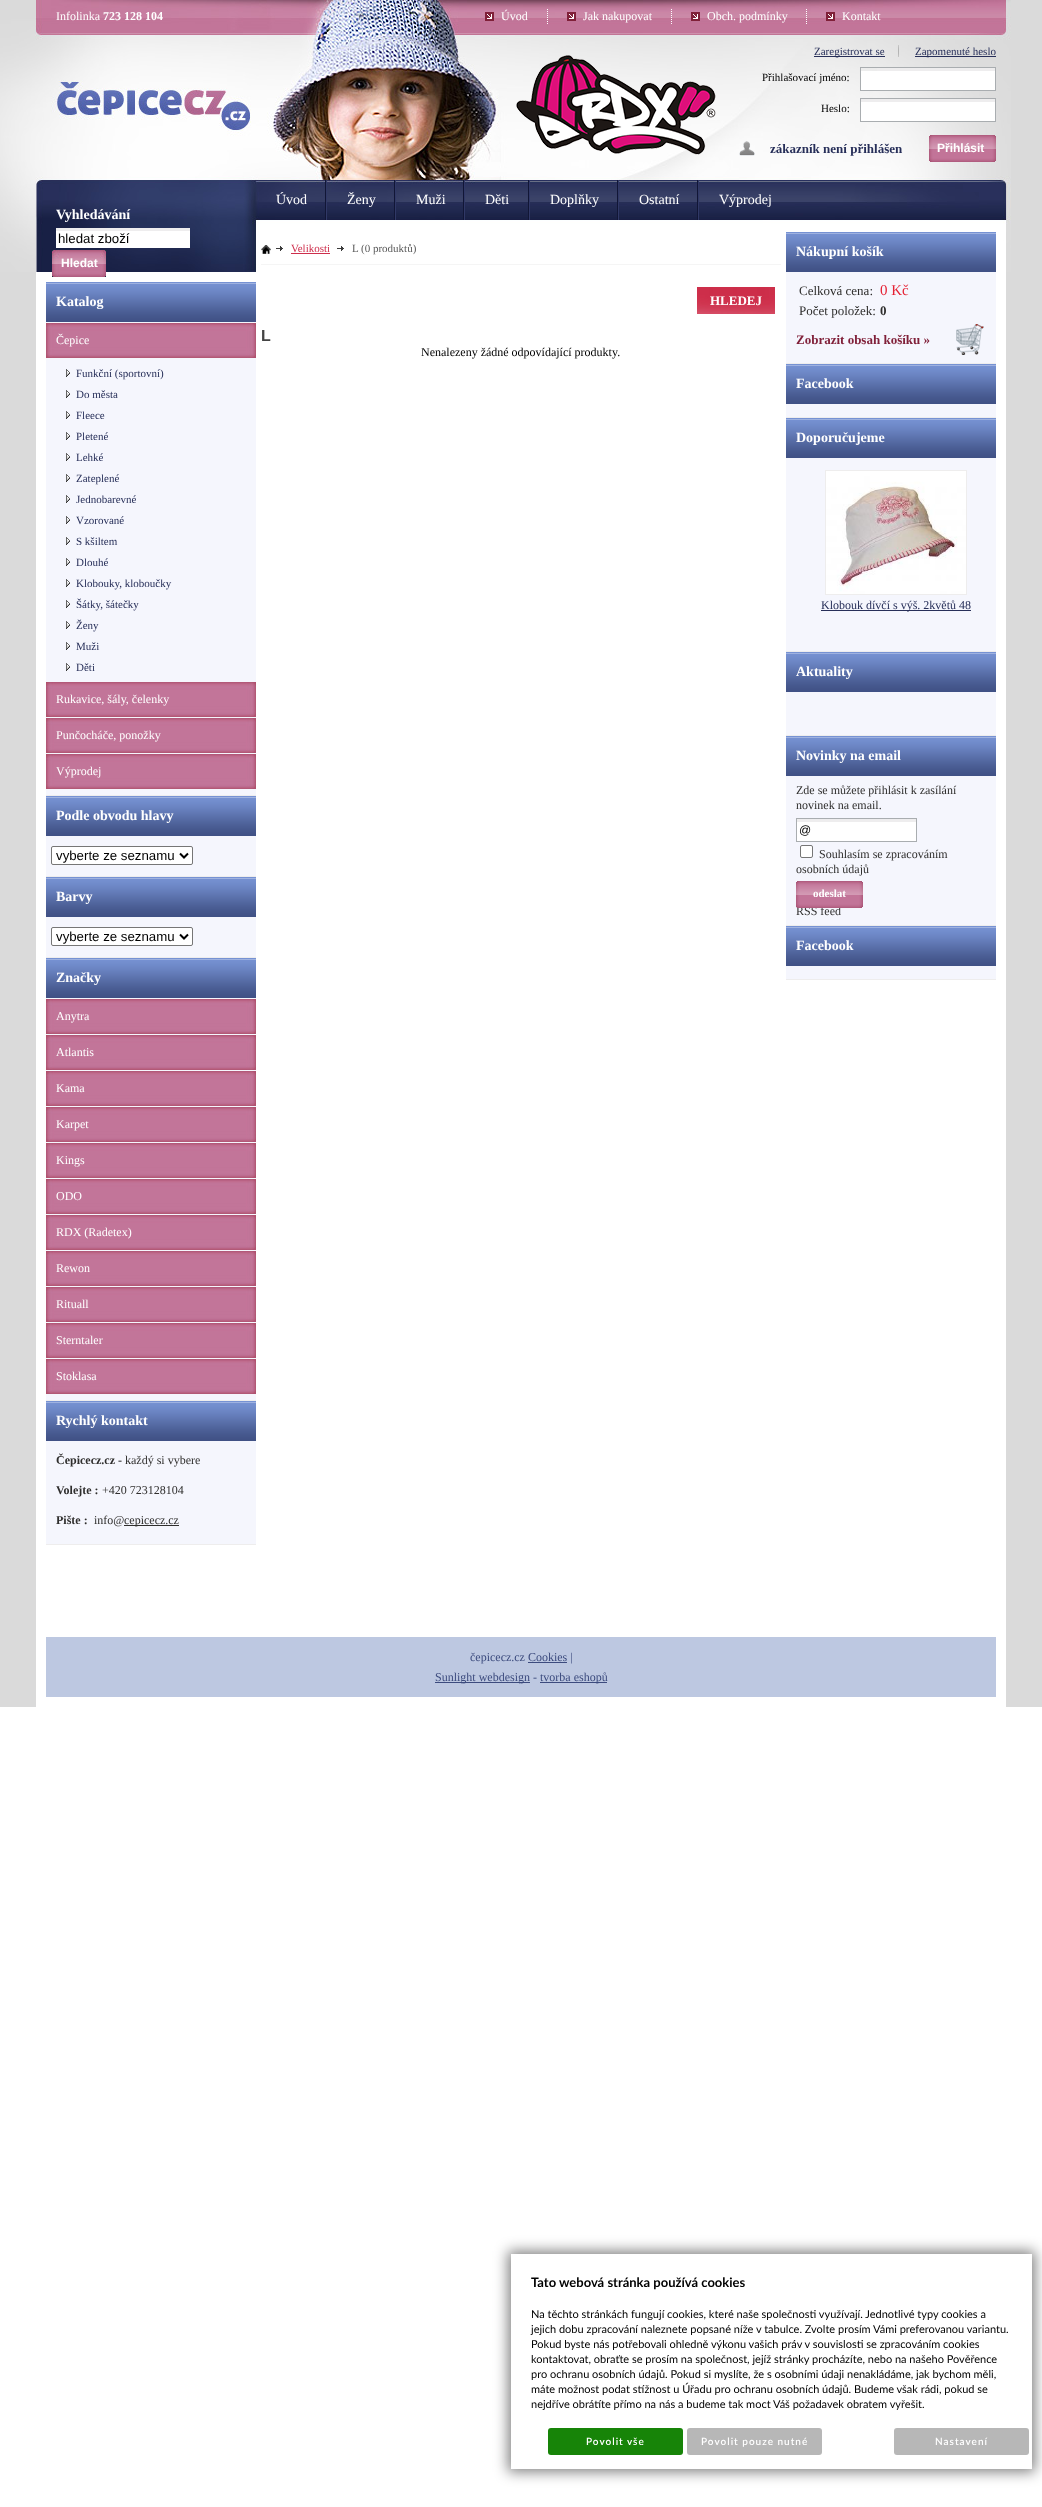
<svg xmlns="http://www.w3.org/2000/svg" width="1042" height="2507">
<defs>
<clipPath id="clip1"><path d="M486 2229h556v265h-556zm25 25h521v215h-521z" clip-rule="evenodd"/></clipPath>
</defs>
<rect width="100%" height="100%" fill="#fff"/>
<rect width="1042" height="1707" fill="#dadada"/>
<image x="0" y="0" width="1011" height="272" href="media/1.png"/>
<text x="56" y="20" style="font-family:Liberation Serif;font-size:12px;fill:#fff">Infolinka</text>
<text x="103" y="20" style="font-family:Liberation Serif;font-size:12px;font-weight:bold;fill:#fff">723 128 104</text>
<image x="547" y="9" width="1" height="15" href="media/2.png"/>
<image x="485" y="12" width="9" height="9" href="media/3.png"/>
<text x="501" y="20" style="font-family:Liberation Serif;font-size:12px;fill:#fff">Úvod</text>
<image x="671" y="9" width="1" height="15" href="media/4.png"/>
<image x="567" y="12" width="9" height="9" href="media/3.png"/>
<text x="583" y="20" style="font-family:Liberation Serif;font-size:12px;fill:#fff">Jak nakupovat</text>
<image x="806" y="9" width="1" height="15" href="media/2.png"/>
<image x="691" y="12" width="9" height="9" href="media/3.png"/>
<text x="707" y="20" style="font-family:Liberation Serif;font-size:12px;fill:#fff">Obch. podmínky</text>
<image x="826" y="12" width="9" height="9" href="media/3.png"/>
<text x="842" y="20" style="font-family:Liberation Serif;font-size:12px;fill:#fff">Kontakt</text>
<image x="516" y="55" width="200" height="100" href="media/5.png"/>
<image x="898" y="45" width="1" height="12" href="media/6.png"/>
<rect x="814" y="56" width="71" height="1" fill="#272f59"/>
<text x="814" y="55" style="font-family:Liberation Serif;font-size:11px;fill:#272f59">Zaregistrovat se</text>
<rect x="915" y="56" width="81" height="1" fill="#272f59"/>
<text x="915" y="55" style="font-family:Liberation Serif;font-size:11px;fill:#272f59">Zapomenuté heslo</text>
<text x="762" y="81" style="font-family:Liberation Serif;font-size:11px;fill:#000">Přihlašovací jméno:</text>
<rect x="861" y="71" width="134" height="19" fill="#fff"/>
<rect x="877" y="68" width="119" height="3" fill="#eeedee"/>
<rect x="860.5" y="67.5" width="135" height="23" fill="none" stroke="#a9adb0"/>
<text x="821" y="112" style="font-family:Liberation Serif;font-size:11px;fill:#000">Heslo:</text>
<rect x="861" y="102" width="134" height="19" fill="#fff"/>
<rect x="860" y="99" width="136" height="3" fill="#eeedee"/>
<rect x="860.5" y="98.5" width="135" height="23" fill="none" stroke="#a9adb0"/>
<image x="739" y="141" width="16" height="15" href="media/7.png"/>
<text x="770" y="153" style="font-family:Liberation Serif;font-size:13px;font-weight:bold;fill:#272f59">zákazník není přihlášen</text>
<image x="929" y="135" width="67" height="27" href="media/8.png"/>
<text x="937" y="152" style="font-family:Liberation Sans;font-size:12px;font-weight:bold;fill:#fff">Přihlásit</text>
<image x="325" y="180" width="2" height="40" href="media/9.png"/>
<text x="276" y="204" style="font-family:Liberation Serif;font-size:14px;fill:#fff">Úvod</text>
<image x="394" y="180" width="2" height="40" href="media/9.png"/>
<text x="347" y="204" style="font-family:Liberation Serif;font-size:14px;fill:#fff">Ženy</text>
<image x="463" y="180" width="2" height="40" href="media/9.png"/>
<text x="416" y="204" style="font-family:Liberation Serif;font-size:14px;fill:#fff">Muži</text>
<image x="528" y="180" width="2" height="40" href="media/9.png"/>
<text x="485" y="204" style="font-family:Liberation Serif;font-size:14px;fill:#fff">Děti</text>
<image x="617" y="180" width="2" height="40" href="media/9.png"/>
<text x="550" y="204" style="font-family:Liberation Serif;font-size:14px;fill:#fff">Doplňky</text>
<image x="697" y="180" width="2" height="40" href="media/9.png"/>
<text x="639" y="204" style="font-family:Liberation Serif;font-size:14px;fill:#fff">Ostatní</text>
<text x="719" y="204" style="font-family:Liberation Serif;font-size:14px;fill:#fff">Výprodej</text>
<rect x="36" y="272" width="970" height="1435" fill="#fff"/>
<text x="56" y="219" style="font-family:Liberation Serif;font-size:14px;font-weight:bold;fill:#fff">Vyhledávání</text>
<rect x="56" y="231" width="134" height="17" fill="#fff"/>
<rect x="56" y="228" width="134" height="3" fill="#eeedee"/>
<text x="58" y="243" style="font-family:Liberation Sans;font-size:13.25px;fill:#000">hledat zboží</text>
<image x="52" y="250" width="54" height="27" href="media/10.png"/>
<text x="61" y="267" style="font-family:Liberation Sans;font-size:12px;font-weight:bold;fill:#fff">Hledat</text>
<rect x="46" y="322" width="210" height="473" fill="#f5f6fd"/>
<rect x="46" y="795" width="210" height="1" fill="#eeeded"/>
<image x="46" y="282" width="210" height="40" href="media/11.png"/>
<text x="56" y="306" style="font-family:Liberation Serif;font-size:14px;font-weight:bold;fill:#fff">Katalog</text>
<image x="46" y="323" width="210" height="35" href="media/12.png"/>
<text x="56" y="344" style="font-family:Liberation Serif;font-size:12px;fill:#fff">Čepice</text>
<image x="66" y="369" width="4" height="8" href="media/13.png"/>
<text x="76" y="377" style="font-family:Liberation Serif;font-size:11px;fill:#272f59">Funkční (sportovní)</text>
<image x="66" y="390" width="4" height="8" href="media/13.png"/>
<text x="76" y="398" style="font-family:Liberation Serif;font-size:11px;fill:#272f59">Do města</text>
<image x="66" y="411" width="4" height="8" href="media/13.png"/>
<text x="76" y="419" style="font-family:Liberation Serif;font-size:11px;fill:#272f59">Fleece</text>
<image x="66" y="432" width="4" height="8" href="media/13.png"/>
<text x="76" y="440" style="font-family:Liberation Serif;font-size:11px;fill:#272f59">Pletené</text>
<image x="66" y="453" width="4" height="8" href="media/13.png"/>
<text x="76" y="461" style="font-family:Liberation Serif;font-size:11px;fill:#272f59">Lehké</text>
<image x="66" y="474" width="4" height="8" href="media/13.png"/>
<text x="76" y="482" style="font-family:Liberation Serif;font-size:11px;fill:#272f59">Zateplené</text>
<image x="66" y="495" width="4" height="8" href="media/13.png"/>
<text x="76" y="503" style="font-family:Liberation Serif;font-size:11px;fill:#272f59">Jednobarevné</text>
<image x="66" y="516" width="4" height="8" href="media/13.png"/>
<text x="76" y="524" style="font-family:Liberation Serif;font-size:11px;fill:#272f59">Vzorované</text>
<image x="66" y="537" width="4" height="8" href="media/13.png"/>
<text x="76" y="545" style="font-family:Liberation Serif;font-size:11px;fill:#272f59">S kšiltem</text>
<image x="66" y="558" width="4" height="8" href="media/13.png"/>
<text x="76" y="566" style="font-family:Liberation Serif;font-size:11px;fill:#272f59">Dlouhé</text>
<image x="66" y="579" width="4" height="8" href="media/13.png"/>
<text x="76" y="587" style="font-family:Liberation Serif;font-size:11px;fill:#272f59">Klobouky, kloboučky</text>
<image x="66" y="600" width="4" height="8" href="media/13.png"/>
<text x="76" y="608" style="font-family:Liberation Serif;font-size:11px;fill:#272f59">Šátky, šátečky</text>
<image x="66" y="621" width="4" height="8" href="media/13.png"/>
<text x="76" y="629" style="font-family:Liberation Serif;font-size:11px;fill:#272f59">Ženy</text>
<image x="66" y="642" width="4" height="8" href="media/13.png"/>
<text x="76" y="650" style="font-family:Liberation Serif;font-size:11px;fill:#272f59">Muži</text>
<image x="66" y="663" width="4" height="8" href="media/13.png"/>
<text x="76" y="671" style="font-family:Liberation Serif;font-size:11px;fill:#272f59">Děti</text>
<image x="46" y="682" width="210" height="35" href="media/12.png"/>
<text x="56" y="703" style="font-family:Liberation Serif;font-size:12px;fill:#fff">Rukavice, šály, čelenky</text>
<image x="46" y="718" width="210" height="35" href="media/12.png"/>
<text x="56" y="739" style="font-family:Liberation Serif;font-size:12px;fill:#fff">Punčocháče, ponožky</text>
<image x="46" y="754" width="210" height="35" href="media/12.png"/>
<text x="56" y="775" style="font-family:Liberation Serif;font-size:12px;fill:#fff">Výprodej</text>
<rect x="46" y="836" width="210" height="40" fill="#f5f6fd"/>
<rect x="46" y="876" width="210" height="1" fill="#eeeded"/>
<image x="46" y="796" width="210" height="40" href="media/11.png"/>
<text x="56" y="820" style="font-family:Liberation Serif;font-size:14px;font-weight:bold;fill:#fff">Podle obvodu hlavy</text>
<rect x="51.5" y="846.5" width="141" height="18" rx="1.5" fill="#fff" stroke="#767676"/>
<path d="M180 853.5l4 4l4-4" fill="none" stroke="#000" stroke-width="2"/>
<text x="56" y="860" style="font-family:Liberation Sans;font-size:13.25px;fill:#000">vyberte ze seznamu</text>
<rect x="46" y="917" width="210" height="40" fill="#f5f6fd"/>
<rect x="46" y="957" width="210" height="1" fill="#eeeded"/>
<image x="46" y="877" width="210" height="40" href="media/11.png"/>
<text x="56" y="901" style="font-family:Liberation Serif;font-size:14px;font-weight:bold;fill:#fff">Barvy</text>
<rect x="51.5" y="927.5" width="141" height="18" rx="1.5" fill="#fff" stroke="#767676"/>
<path d="M180 934.5l4 4l4-4" fill="none" stroke="#000" stroke-width="2"/>
<text x="56" y="941" style="font-family:Liberation Sans;font-size:13.25px;fill:#000">vyberte ze seznamu</text>
<rect x="46" y="998" width="210" height="402" fill="#f5f6fd"/>
<rect x="46" y="1400" width="210" height="1" fill="#eeeded"/>
<image x="46" y="958" width="210" height="40" href="media/11.png"/>
<text x="56" y="982" style="font-family:Liberation Serif;font-size:14px;font-weight:bold;fill:#fff">Značky</text>
<image x="46" y="999" width="210" height="35" href="media/12.png"/>
<text x="56" y="1020" style="font-family:Liberation Serif;font-size:12px;fill:#fff">Anytra</text>
<image x="46" y="1035" width="210" height="35" href="media/12.png"/>
<text x="56" y="1056" style="font-family:Liberation Serif;font-size:12px;fill:#fff">Atlantis</text>
<image x="46" y="1071" width="210" height="35" href="media/12.png"/>
<text x="56" y="1092" style="font-family:Liberation Serif;font-size:12px;fill:#fff">Kama</text>
<image x="46" y="1107" width="210" height="35" href="media/12.png"/>
<text x="56" y="1128" style="font-family:Liberation Serif;font-size:12px;fill:#fff">Karpet</text>
<image x="46" y="1143" width="210" height="35" href="media/12.png"/>
<text x="56" y="1164" style="font-family:Liberation Serif;font-size:12px;fill:#fff">Kings</text>
<image x="46" y="1179" width="210" height="35" href="media/12.png"/>
<text x="56" y="1200" style="font-family:Liberation Serif;font-size:12px;fill:#fff">ODO</text>
<image x="46" y="1215" width="210" height="35" href="media/12.png"/>
<text x="56" y="1236" style="font-family:Liberation Serif;font-size:12px;fill:#fff">RDX (Radetex)</text>
<image x="46" y="1251" width="210" height="35" href="media/12.png"/>
<text x="56" y="1272" style="font-family:Liberation Serif;font-size:12px;fill:#fff">Rewon</text>
<image x="46" y="1287" width="210" height="35" href="media/12.png"/>
<text x="56" y="1308" style="font-family:Liberation Serif;font-size:12px;fill:#fff">Rituall</text>
<image x="46" y="1323" width="210" height="35" href="media/12.png"/>
<text x="56" y="1344" style="font-family:Liberation Serif;font-size:12px;fill:#fff">Sterntaler</text>
<image x="46" y="1359" width="210" height="35" href="media/12.png"/>
<text x="56" y="1380" style="font-family:Liberation Serif;font-size:12px;fill:#fff">Stoklasa</text>
<rect x="46" y="1441" width="210" height="103" fill="#f5f6fd"/>
<rect x="46" y="1544" width="210" height="1" fill="#eeeded"/>
<image x="46" y="1401" width="210" height="40" href="media/11.png"/>
<text x="56" y="1425" style="font-family:Liberation Serif;font-size:14px;font-weight:bold;fill:#fff">Rychlý kontakt</text>
<text x="56" y="1464" style="font-family:Liberation Serif;font-size:12px;font-weight:bold;fill:#2f2e2d">Čepicecz.cz -</text>
<text x="125" y="1464" style="font-family:Liberation Serif;font-size:12px;fill:#2f2e2d">každý si vybere</text>
<text x="56" y="1494" style="font-family:Liberation Serif;font-size:12px;font-weight:bold;fill:#2f2e2d">Volejte :</text>
<text x="102" y="1494" style="font-family:Liberation Serif;font-size:12px;fill:#2f2e2d">+420 723128104</text>
<text x="56" y="1524" style="font-family:Liberation Serif;font-size:12px;font-weight:bold;fill:#2f2e2d">Pište :</text>
<text x="94" y="1524" style="font-family:Liberation Serif;font-size:12px;fill:#2f2e2d">info@</text>
<rect x="124" y="1525" width="55" height="1" fill="#2f2e2d"/>
<text x="124" y="1524" style="font-family:Liberation Serif;font-size:12px;fill:#2f2e2d">cepicecz.cz</text>
<rect x="261" y="264" width="520" height="1" fill="#f5f5f5"/>
<image x="261" y="245" width="10" height="9" href="media/14.png"/>
<image x="276" y="246" width="7" height="5" href="media/15.png"/>
<text x="291" y="252" style="font-family:Liberation Serif;font-size:11px;fill:#ce2e4c">Velikosti</text>
<rect x="291" y="253" width="39" height="1" fill="#ce2e4c"/>
<image x="337" y="246" width="7" height="5" href="media/15.png"/>
<text x="352" y="252" style="font-family:Liberation Serif;font-size:11px;fill:#5a5a5a">L</text>
<text x="361" y="252" style="font-family:Liberation Serif;font-size:11px;fill:#5a5a5a">(0 produktů)</text>
<image x="697" y="287" width="78" height="27" href="media/16.png"/>
<text x="710" y="305" style="font-family:Liberation Serif;font-size:13px;font-weight:bold;fill:#fff">HLEDEJ</text>
<text x="261" y="341" style="font-family:Liberation Sans;font-size:16px;font-weight:bold;fill:#444">L</text>
<text x="421" y="356" style="font-family:Liberation Serif;font-size:12px;fill:#000">Nenalezeny žádné odpovídající produkty.</text>
<rect x="786" y="272" width="210" height="91" fill="#f5f6fd"/>
<rect x="786" y="363" width="210" height="1" fill="#eeeded"/>
<image x="786" y="232" width="210" height="40" href="media/11.png"/>
<text x="796" y="256" style="font-family:Liberation Serif;font-size:14px;font-weight:bold;fill:#fff">Nákupní košík</text>
<text x="799" y="295" style="font-family:Liberation Serif;font-size:13px;fill:#2f2e2d">Celková cena:</text>
<text x="880" y="295" style="font-family:Liberation Serif;font-size:15px;fill:#e52133">0 Kč</text>
<text x="799" y="315" style="font-family:Liberation Serif;font-size:13px;fill:#2f2e2d">Počet položek:</text>
<text x="880" y="315" style="font-family:Liberation Serif;font-size:13px;font-weight:bold;fill:#2f2e2d">0</text>
<image x="956" y="324" width="28" height="31" href="media/17.png"/>
<text x="796" y="344" style="font-family:Liberation Serif;font-size:13px;font-weight:bold;fill:#802039">Zobrazit obsah košíku »</text>
<rect x="786" y="404" width="210" height="13" fill="#f5f6fd"/>
<rect x="786" y="417" width="210" height="1" fill="#eeeded"/>
<image x="786" y="364" width="210" height="40" href="media/11.png"/>
<text x="796" y="388" style="font-family:Liberation Serif;font-size:14px;font-weight:bold;fill:#fff">Facebook</text>
<rect x="786" y="458" width="210" height="193" fill="#f5f6fd"/>
<rect x="786" y="651" width="210" height="1" fill="#eeeded"/>
<image x="786" y="418" width="210" height="40" href="media/11.png"/>
<text x="796" y="442" style="font-family:Liberation Serif;font-size:14px;font-weight:bold;fill:#fff">Doporučujeme</text>
<rect x="825.5" y="470.5" width="141" height="124" fill="none" stroke="#eeeded"/>
<image x="826" y="471" width="140" height="123" href="media/18.png"/>
<rect x="821" y="610" width="150" height="1" fill="#272f59"/>
<text x="821" y="609" style="font-family:Liberation Serif;font-size:12px;fill:#272f59">Klobouk dívčí s výš. 2květů 48</text>
<rect x="786" y="692" width="210" height="43" fill="#f5f6fd"/>
<rect x="786" y="735" width="210" height="1" fill="#eeeded"/>
<image x="786" y="652" width="210" height="40" href="media/11.png"/>
<text x="796" y="676" style="font-family:Liberation Serif;font-size:14px;font-weight:bold;fill:#fff">Aktuality</text>
<rect x="786" y="776" width="210" height="149" fill="#f5f6fd"/>
<rect x="786" y="925" width="210" height="1" fill="#eeeded"/>
<image x="786" y="736" width="210" height="40" href="media/11.png"/>
<text x="796" y="760" style="font-family:Liberation Serif;font-size:14px;font-weight:bold;fill:#fff">Novinky na email</text>
<text x="796" y="794" style="font-family:Liberation Serif;font-size:12px;fill:#2f2e2d">Zde se můžete přihlásit k zasílání</text>
<text x="796" y="809" style="font-family:Liberation Serif;font-size:12px;fill:#2f2e2d">novinek na email.</text>
<rect x="797" y="822" width="119" height="19" fill="#fff"/>
<rect x="796" y="819" width="121" height="3" fill="#eeedee"/>
<rect x="796.5" y="818.5" width="120" height="23" fill="none" stroke="#a9adb0"/>
<text x="799" y="834" style="font-family:Liberation Sans;font-size:12px;fill:#000">@</text>
<rect x="800.5" y="845.5" width="12" height="12" rx="1.5" fill="#fff" stroke="#767676"/>
<text x="819" y="858" style="font-family:Liberation Serif;font-size:12px;fill:#2f2e2d">Souhlasím se zpracováním</text>
<text x="796" y="873" style="font-family:Liberation Serif;font-size:12px;fill:#2f2e2d">osobních údajů</text>
<text x="796" y="915" style="font-family:Liberation Serif;font-size:12px;fill:#2f2e2d">RSS feed</text>
<image x="796" y="881" width="67" height="27" href="media/19.png"/>
<text x="813" y="897" style="font-family:Liberation Serif;font-size:11px;font-weight:bold;fill:#fff">odeslat</text>
<rect x="786" y="966" width="210" height="13" fill="#f5f6fd"/>
<rect x="786" y="979" width="210" height="1" fill="#eeeded"/>
<image x="786" y="926" width="210" height="40" href="media/11.png"/>
<text x="796" y="950" style="font-family:Liberation Serif;font-size:14px;font-weight:bold;fill:#fff">Facebook</text>
<rect x="46" y="1637" width="950" height="60" fill="#bdc8e1"/>
<text x="470" y="1661" style="font-family:Liberation Serif;font-size:12px;fill:#3c4b7e">čepicecz.cz Cookies |</text>
<rect x="528" y="1662" width="39" height="1" fill="#3c4b7e"/>
<rect x="435" y="1682" width="95" height="1" fill="#3c4b7e"/>
<text x="435" y="1681" style="font-family:Liberation Serif;font-size:12px;fill:#3c4b7e">Sunlight webdesign -</text>
<rect x="540" y="1682" width="67" height="1" fill="#3c4b7e"/>
<text x="540" y="1681" style="font-family:Liberation Serif;font-size:12px;fill:#3c4b7e">tvorba eshopů</text>
<g clip-path="url(#clip1)">
<rect x="508" y="2251" width="527" height="221" fill="#00000080" filter="blur(7px)"/>
</g>
<text x="531" y="2287" style="font-family:Lato;font-size:13px;font-weight:bold;fill:#000">Tato webová stránka používá cookies</text>
<text x="531" y="2318" style="font-family:Lato;font-size:11px;fill:#000">Na těchto stránkách fungují cookies, které naše společnosti využívají. Jednotlivé typy cookies a</text>
<text x="531" y="2333" style="font-family:Lato;font-size:11px;fill:#000">jejich dobu zpracování naleznete popsané níže v tabulce. Zvolte prosím Vámi preferovanou variantu.</text>
<text x="531" y="2348" style="font-family:Lato;font-size:11px;fill:#000">Pokud byste nás potřebovali ohledně výkonu vašich práv v souvislosti se zpracováním cookies</text>
<text x="531" y="2363" style="font-family:Lato;font-size:11px;fill:#000">kontaktovat, obraťte se prosím na společnost, jejíž stránky procházíte, nebo na našeho Pověřence</text>
<text x="531" y="2378" style="font-family:Lato;font-size:11px;fill:#000">pro ochranu osobních údajů. Pokud si myslíte, že s osobními údaji nenakládáme, jak bychom měli,</text>
<text x="531" y="2393" style="font-family:Lato;font-size:11px;fill:#000">máte možnost podat stížnost u Úřadu pro ochranu osobních údajů. Budeme však rádi, pokud se</text>
<text x="531" y="2408" style="font-family:Lato;font-size:11px;fill:#000">nejdříve obrátíte přímo na nás a budeme tak moct Váš požadavek obratem vyřešit.</text>
<rect x="548" y="2428" width="135" height="27" rx="3" fill="#178408"/>
<text x="586" y="2445" style="font-family:Lato;font-size:10px;font-weight:600;letter-spacing:1px;fill:#fff">Povolit vše</text>
<rect x="687" y="2428" width="135" height="27" rx="3" fill="#b7b7b7"/>
<text x="701" y="2445" style="font-family:Lato;font-size:10px;font-weight:600;letter-spacing:1px;fill:#fff">Povolit pouze nutné</text>
<rect x="894" y="2428" width="135" height="27" rx="3" fill="#b7b7b7"/>
<text x="935" y="2445" style="font-family:Lato;font-size:10px;font-weight:600;letter-spacing:1px;fill:#fff">Nastavení</text>
</svg>
